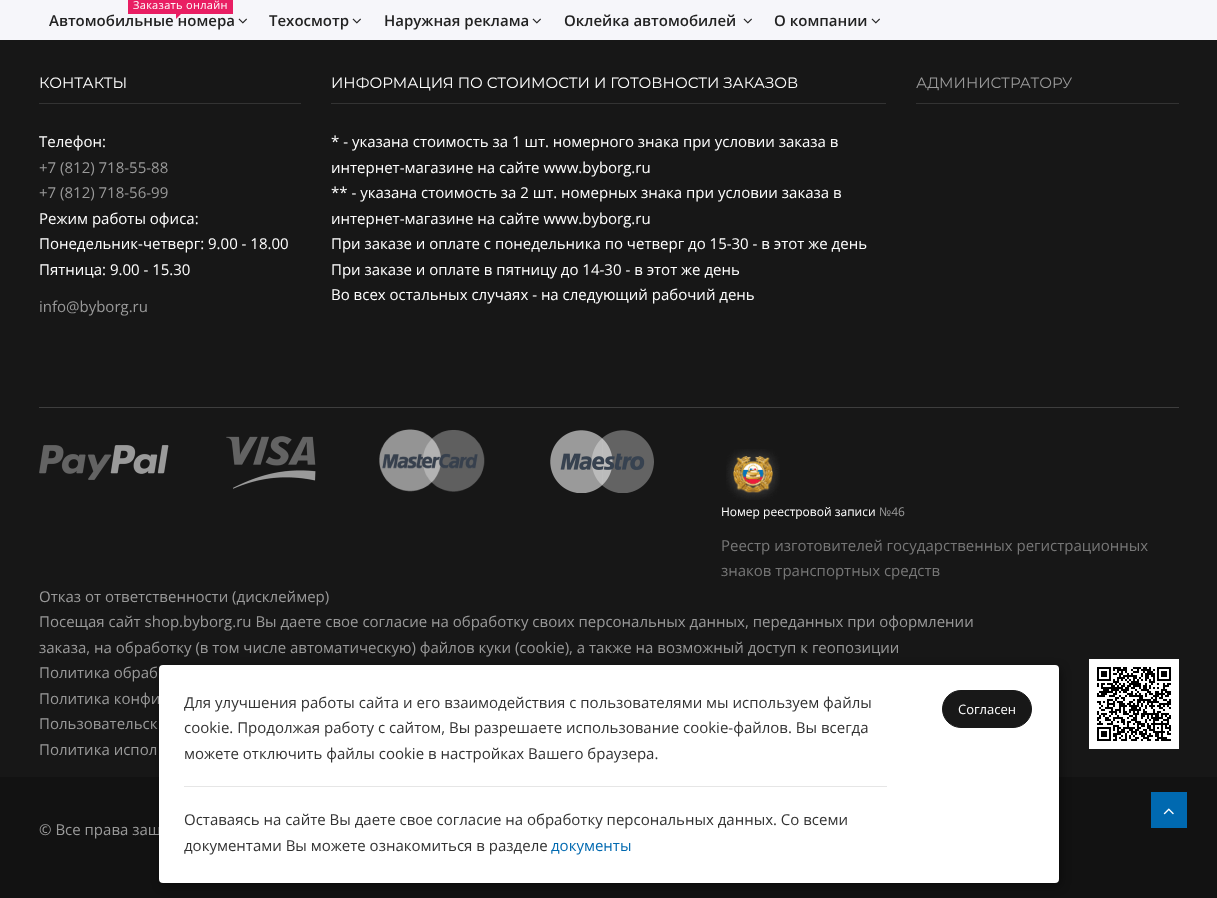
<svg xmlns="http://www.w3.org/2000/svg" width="1217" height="898">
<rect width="100%" height="100%" fill="#171717"/>
<rect width="1217" height="40" fill="#f6f6fa"/>
<rect x="128" width="105" height="14" fill="#e91e63"/>
<text x="133" y="9" style="font-family:Open Sans;font-size:11px;letter-spacing:0.3px;fill:#fff">Заказать онлайн</text>
<text x="49" y="26" style="font-family:Open Sans;font-size:15px;font-weight:600;fill:#222">Автомобильные номера</text>
<path d="M176 14h5l-5 5z" fill="#e91e63"/>
<image x="238" y="18" width="9" height="6" href="media/1.png"/>
<text x="269" y="26" style="font-family:Open Sans;font-size:15px;font-weight:600;fill:#222">Техосмотр</text>
<image x="352" y="18" width="9" height="6" href="media/1.png"/>
<text x="384" y="26" style="font-family:Open Sans;font-size:15px;font-weight:600;fill:#222">Наружная реклама</text>
<image x="532" y="18" width="9" height="6" href="media/1.png"/>
<text x="564" y="26" style="font-family:Open Sans;font-size:15px;font-weight:600;fill:#222">Оклейка автомобилей</text>
<image x="743" y="18" width="9" height="6" href="media/1.png"/>
<text x="774" y="26" style="font-family:Open Sans;font-size:15px;font-weight:600;fill:#222">О компании</text>
<image x="871" y="18" width="9" height="6" href="media/1.png"/>
<rect x="39" y="103" width="262" height="1" fill="#333"/>
<text x="39" y="88" style="font-family:Montserrat;font-size:15px;fill:#fff">КОНТАКТЫ</text>
<text x="39" y="147" style="font-family:Open Sans;font-size:15px;fill:#fff">Телефон:</text>
<text x="39" y="173" style="font-family:Open Sans;font-size:15px;fill:#9a9a9a">+7 (812) 718-55-88</text>
<text x="39" y="198" style="font-family:Open Sans;font-size:15px;fill:#9a9a9a">+7 (812) 718-56-99</text>
<text x="39" y="224" style="font-family:Open Sans;font-size:15px;fill:#fff">Режим работы офиса:</text>
<text x="39" y="249" style="font-family:Open Sans;font-size:15px;fill:#fff">Понедельник-четверг: 9.00 - 18.00</text>
<text x="39" y="275" style="font-family:Open Sans;font-size:15px;fill:#fff">Пятница: 9.00 - 15.30</text>
<text x="39" y="312" style="font-family:Open Sans;font-size:15px;fill:#9a9a9a">info@byborg.ru</text>
<rect x="331" y="103" width="555" height="1" fill="#333"/>
<text x="331" y="88" style="font-family:Montserrat;font-size:15px;fill:#fff">ИНФОРМАЦИЯ ПО СТОИМОСТИ И ГОТОВНОСТИ ЗАКАЗОВ</text>
<text x="331" y="147" style="font-family:Open Sans;font-size:15px;fill:#fff">* - указана стоимость за 1 шт. номерного знака при условии заказа в</text>
<text x="331" y="173" style="font-family:Open Sans;font-size:15px;fill:#fff">интернет-магазине на сайте www.byborg.ru</text>
<text x="331" y="198" style="font-family:Open Sans;font-size:15px;fill:#fff">** - указана стоимость за 2 шт. номерных знака при условии заказа в</text>
<text x="331" y="224" style="font-family:Open Sans;font-size:15px;fill:#fff">интернет-магазине на сайте www.byborg.ru</text>
<text x="331" y="249" style="font-family:Open Sans;font-size:15px;fill:#fff">При заказе и оплате с понедельника по четверг до 15-30 - в этот же день</text>
<text x="331" y="275" style="font-family:Open Sans;font-size:15px;fill:#fff">При заказе и оплате в пятницу до 14-30 - в этот же день</text>
<text x="331" y="300" style="font-family:Open Sans;font-size:15px;fill:#fff">Во всех остальных случаях - на следующий рабочий день</text>
<rect x="916" y="103" width="263" height="1" fill="#333"/>
<text x="916" y="88" style="font-family:Montserrat;font-size:15px;fill:#9a9a9a">АДМИНИСТРАТОРУ</text>
<rect x="39" y="407" width="1140" height="1" fill="#3e3e3e"/>
<image x="39" y="429" width="615" height="64" href="media/2.png"/>
<image x="726" y="449" width="54" height="51" href="media/3.png"/>
<text x="721" y="516" style="font-family:Open Sans;font-size:12px;fill:#fff">Номер реестровой записи</text>
<text x="879" y="516" style="font-family:Open Sans;font-size:12px;fill:#9a9a9a">№46</text>
<text x="721" y="551" style="font-family:Open Sans;font-size:15px;fill:#777">Реестр изготовителей государственных регистрационных</text>
<text x="721" y="576" style="font-family:Open Sans;font-size:15px;fill:#777">знаков транспортных средств</text>
<text x="39" y="602" style="font-family:Open Sans;font-size:15px;fill:#9a9a9a">Отказ от ответственности (дисклеймер)</text>
<text x="39" y="627" style="font-family:Open Sans;font-size:15px;fill:#9a9a9a">Посещая сайт shop.byborg.ru Вы даете свое согласие на обработку своих персональных данных, переданных при оформлении</text>
<text x="39" y="653" style="font-family:Open Sans;font-size:15px;fill:#9a9a9a">заказа, на обработку (в том числе автоматическую) файлов куки (cookie), а также на возможный доступ к геопозиции</text>
<text x="39" y="678" style="font-family:Open Sans;font-size:15px;fill:#9a9a9a">Политика обраб</text>
<text x="39" y="704" style="font-family:Open Sans;font-size:15px;fill:#9a9a9a">Политика конфи</text>
<text x="39" y="729" style="font-family:Open Sans;font-size:15px;fill:#9a9a9a">Пользовательск</text>
<text x="39" y="755" style="font-family:Open Sans;font-size:15px;fill:#9a9a9a">Политика испол</text>
<image x="1089" y="659" width="90" height="90" href="media/4.png"/>
<rect y="777" width="1217" height="121" fill="#121212"/>
<text x="39" y="835" style="font-family:Open Sans;font-size:15px;fill:#9a9a9a">© Все права защ</text>
<rect x="161" y="668" width="900" height="218" rx="4" fill="#00000066" filter="blur(5px)"/>
<rect x="159" y="665" width="900" height="218" rx="4" fill="#fff"/>
<text x="184" y="708" style="font-family:Open Sans;font-size:15px;fill:#323232">Для улучшения работы сайта и его взаимодействия с пользователями мы используем файлы</text>
<text x="184" y="733" style="font-family:Open Sans;font-size:15px;fill:#323232">cookie. Продолжая работу с сайтом, Вы разрешаете использование cookie-файлов. Вы всегда</text>
<text x="184" y="759" style="font-family:Open Sans;font-size:15px;fill:#323232">можете отключить файлы cookie в настройках Вашего браузера.</text>
<rect x="184" y="786" width="703" height="1" fill="#e6e6e6"/>
<text x="184" y="825" style="font-family:Open Sans;font-size:15px;fill:#323232">Оставаясь на сайте Вы даете свое согласие на обработку персональных данных. Со всеми</text>
<text x="184" y="851" style="font-family:Open Sans;font-size:15px;fill:#323232">документами Вы можете ознакомиться в разделе</text>
<text x="551" y="851" style="font-family:Open Sans;font-size:15px;fill:#0069b0">документы</text>
<rect x="942.5" y="690.5" width="89" height="37" rx="18.5" fill="#181818" stroke="#181818"/>
<text x="958" y="714" style="font-family:Open Sans;font-size:13px;fill:#fff">Согласен</text>
<rect x="1151" y="792" width="36" height="36" fill="#0069b0"/>
<image x="1163" y="808" width="11" height="7" href="media/5.png"/>
</svg>
